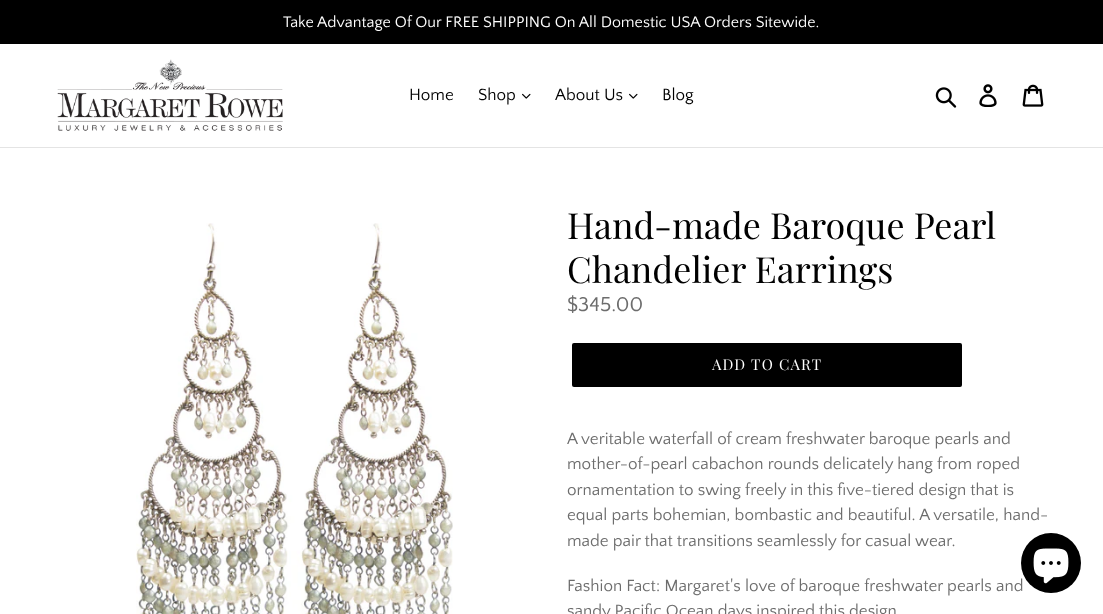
<svg xmlns="http://www.w3.org/2000/svg" width="1103" height="614">
<rect width="100%" height="100%" fill="#fff"/>
<rect width="1103" height="44" fill="#000"/>
<text x="283" y="27" style="font-family:Quattrocento Sans;font-size:16px;fill:#fff">Take Advantage Of Our FREE SHIPPING On All Domestic USA Orders Sitewide.</text>
<rect y="147" width="1103" height="1" fill="#e4e4e4"/>
<image x="57" y="59" width="226" height="72" href="media/1.png"/>
<text x="409" y="100" style="font-family:Quattrocento Sans;font-size:17px;fill:#000">Home</text>
<text x="478" y="100" style="font-family:Quattrocento Sans;font-size:17px;fill:#000">Shop</text>
<image x="522" y="93" width="9" height="6" href="media/2.png"/>
<text x="555" y="100" style="font-family:Quattrocento Sans;font-size:17px;fill:#000">About Us</text>
<image x="629" y="93" width="9" height="6" href="media/2.png"/>
<text x="662" y="100" style="font-family:Quattrocento Sans;font-size:17px;fill:#000">Blog</text>
<image x="935" y="87" width="22" height="21" href="media/3.png"/>
<image x="979" y="84" width="18" height="23" href="media/4.png"/>
<image x="1022" y="84" width="22" height="23" href="media/5.png"/>
<image x="136" y="223" width="317" height="391" href="media/6.png"/>
<text x="567" y="239" style="font-family:Playfair Display;font-size:36px;fill:#000">Hand-made Baroque Pearl</text>
<text x="567" y="283" style="font-family:Playfair Display;font-size:36px;fill:#000">Chandelier Earrings</text>
<text x="567" y="311" style="font-family:Quattrocento Sans;font-size:21px;fill:#6d6d6d">$345.00</text>
<rect x="572" y="343" width="390" height="44" rx="2" fill="#000"/>
<text x="712" y="370" style="font-family:Playfair Display;font-size:15px;letter-spacing:1.25px;fill:#fff">ADD TO CART</text>
<text x="567" y="444" style="font-family:Quattrocento Sans;font-size:17px;fill:#6d6d6d">A veritable waterfall of cream freshwater baroque pearls and</text>
<text x="567" y="469" style="font-family:Quattrocento Sans;font-size:17px;fill:#6d6d6d">mother-of-pearl cabachon rounds delicately hang from roped</text>
<text x="567" y="495" style="font-family:Quattrocento Sans;font-size:17px;fill:#6d6d6d">ornamentation to swing freely in this five-tiered design that is</text>
<text x="567" y="520" style="font-family:Quattrocento Sans;font-size:17px;fill:#6d6d6d">equal parts bohemian, bombastic and beautiful. A versatile, hand-</text>
<text x="567" y="546" style="font-family:Quattrocento Sans;font-size:17px;fill:#6d6d6d">made pair that transitions seamlessly for casual wear.</text>
<text x="567" y="591" style="font-family:Quattrocento Sans;font-size:17px;fill:#6d6d6d">Fashion Fact: Margaret's love of baroque freshwater pearls and</text>
<text x="567" y="616" style="font-family:Quattrocento Sans;font-size:17px;fill:#6d6d6d">sandy Pacific Ocean days inspired this design</text>
<circle cx="1051" cy="563" r="30" fill="#000"/>
<image x="1033" y="548" width="36" height="36" href="media/7.png"/>
</svg>
